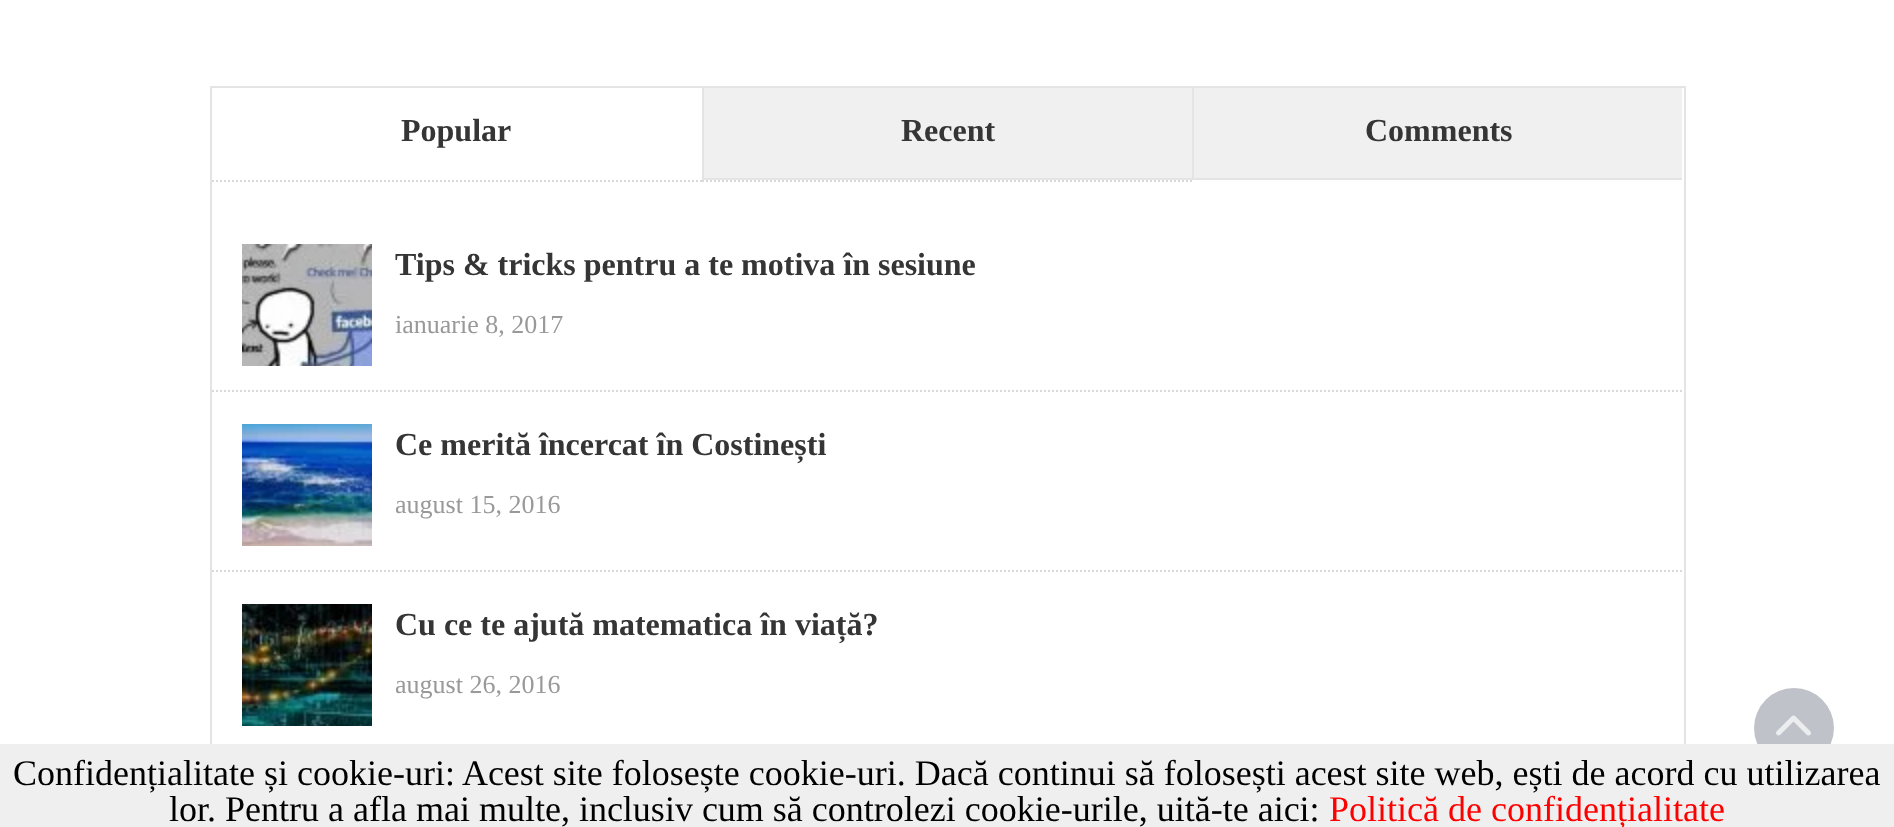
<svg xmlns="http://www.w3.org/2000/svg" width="1894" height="827">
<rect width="100%" height="100%" fill="#fff"/>
<rect x="211" y="87" width="1474" height="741" fill="none" stroke="#e4e4e4" stroke-width="2"/>
<path d="M212 181h490" fill="none" stroke="#d9d9d9" stroke-width="2" stroke-dasharray="2 2"/>
<text x="401" y="141" style="font-family:Liberation Serif;font-size:32px;font-weight:bold;fill:#353535">Popular</text>
<path d="M702 181h490" fill="none" stroke="#d9d9d9" stroke-width="2" stroke-dasharray="2 2"/>
<rect x="704" y="88" width="488" height="90" fill="#f0f0f0"/>
<rect x="702" y="178" width="980" height="2" fill="#e4e4e4"/>
<rect x="702" y="88" width="2" height="92" fill="#e4e4e4"/>
<text x="901" y="141" style="font-family:Liberation Serif;font-size:32px;font-weight:bold;fill:#353535">Recent</text>
<rect x="1194" y="88" width="488" height="90" fill="#f0f0f0"/>
<rect x="1192" y="88" width="2" height="92" fill="#e4e4e4"/>
<text x="1365" y="141" style="font-family:Liberation Serif;font-size:32px;font-weight:bold;fill:#353535">Comments</text>
<path d="M212 391h1472" fill="none" stroke="#d9d9d9" stroke-width="2" stroke-dasharray="2 2"/>
<image x="242" y="244" width="130" height="122" href="media/1.png"/>
<text x="395" y="275" style="font-family:Liberation Serif;font-size:32px;font-weight:bold;fill:#353535">Tips &amp; tricks pentru a te motiva în sesiune</text>
<text x="395" y="333" style="font-family:Liberation Serif;font-size:26px;fill:#999">ianuarie 8, 2017</text>
<path d="M212 571h1472" fill="none" stroke="#d9d9d9" stroke-width="2" stroke-dasharray="2 2"/>
<image x="242" y="424" width="130" height="122" href="media/2.png"/>
<text x="395" y="455" style="font-family:Liberation Serif;font-size:32px;font-weight:bold;fill:#353535">Ce merită încercat în Costinești</text>
<text x="395" y="513" style="font-family:Liberation Serif;font-size:26px;fill:#999">august 15, 2016</text>
<image x="242" y="604" width="130" height="122" href="media/3.png"/>
<text x="395" y="635" style="font-family:Liberation Serif;font-size:32px;font-weight:bold;fill:#353535">Cu ce te ajută matematica în viață?</text>
<text x="395" y="693" style="font-family:Liberation Serif;font-size:26px;fill:#999">august 26, 2016</text>
<circle cx="1794" cy="728" r="40" fill="#c0c2c9"/>
<image x="1776" y="715" width="35" height="21" href="media/4.png"/>
<rect y="744" width="1894" height="83" fill="#efefef"/>
<text x="13" y="785" style="font-family:Liberation Serif;font-size:36px;fill:#000">Confidențialitate și cookie-uri: Acest site folosește cookie-uri. Dacă continui să folosești acest site web, ești de acord cu utilizarea</text>
<text x="169" y="821" style="font-family:Liberation Serif;font-size:36px;fill:#000">lor. Pentru a afla mai multe, inclusiv cum să controlezi cookie-urile, uită-te aici:</text>
<text x="1329" y="821" style="font-family:Liberation Serif;font-size:36px;fill:#f00">Politică de confidențialitate</text>
</svg>
